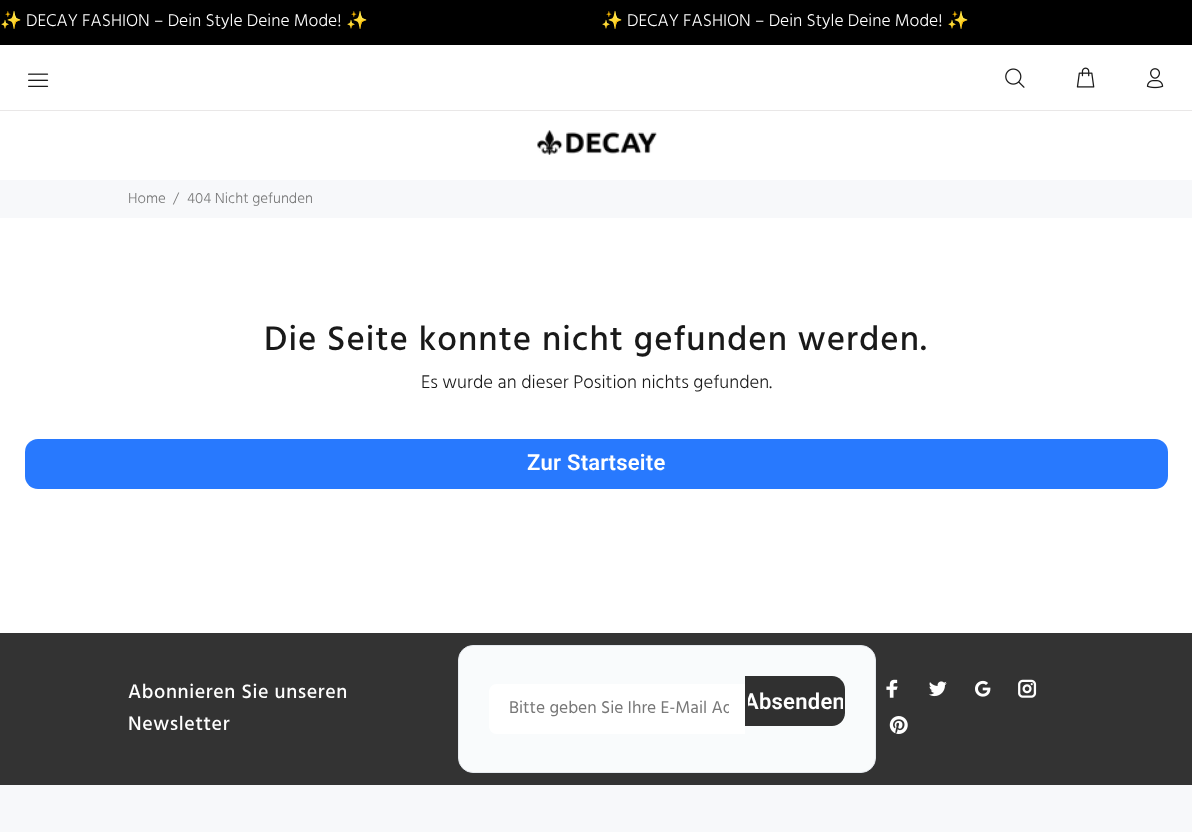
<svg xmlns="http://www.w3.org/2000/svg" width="1192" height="832">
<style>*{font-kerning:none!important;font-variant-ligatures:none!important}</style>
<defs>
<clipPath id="clip1"><rect x="509" y="694" width="220" height="29"/></clipPath>
<clipPath id="clip2"><path d="M748 679h85c5.5 0 10 4.5 10 10v25c0 5.5-4.5 10-10 10h-85z"/></clipPath>
</defs>
<rect width="100%" height="100%" fill="#fff"/>
<rect width="1192" height="45" fill="#000"/>
<text x="0" y="26" style="font-family:Noto Color Emoji;font-size:17.5px;fill:#fff">✨</text>
<text x="26" y="26" style="font-family:Hind;font-size:17.5px;font-weight:300;fill:#fff">DECAY FASHION – Dein Style Deine Mode!</text>
<text x="346" y="26" style="font-family:Noto Color Emoji;font-size:17.5px;fill:#fff">✨</text>
<text x="601" y="26" style="font-family:Noto Color Emoji;font-size:17.5px;fill:#fff">✨</text>
<text x="627" y="26" style="font-family:Hind;font-size:17.5px;font-weight:300;fill:#fff">DECAY FASHION – Dein Style Deine Mode!</text>
<text x="947" y="26" style="font-family:Noto Color Emoji;font-size:17.5px;fill:#fff">✨</text>
<image x="28" y="73" width="21" height="14" href="media/1.png"/>
<image x="1005" y="68" width="20" height="20" href="media/2.png"/>
<image x="1076" y="67" width="19" height="21" href="media/3.png"/>
<image x="1146" y="68" width="18" height="21" href="media/4.png"/>
<rect y="110" width="1192" height="1" fill="#e9e7e7"/>
<image x="537" y="130" width="120" height="25" href="media/5.png"/>
<rect y="180" width="1192" height="38" fill="#f7f8fa"/>
<text x="128" y="203" style="font-family:Hind;font-size:15px;font-weight:300;fill:#777">Home</text>
<text x="173" y="203" style="font-family:Hind;font-size:15px;font-weight:300;fill:#777">/</text>
<text x="187" y="203" style="font-family:Hind;font-size:15px;font-weight:300;fill:#777">404 Nicht gefunden</text>
<text x="264" y="350" style="font-family:Hind;font-size:35px;font-weight:500;letter-spacing:1.05px;fill:#191919">Die Seite konnte nicht gefunden werden.</text>
<text x="421" y="388" style="font-family:Hind;font-size:18.75px;font-weight:300;fill:#191919">Es wurde an dieser Position nichts gefunden.</text>
<rect x="25" y="439" width="1143" height="50" rx="13" fill="#2879fe"/>
<text x="527" y="470" style="font-family:Roboto;font-size:22px;font-weight:600;letter-spacing:0.25px;fill:#fff">Zur Startseite</text>
<rect y="633" width="1192" height="152" fill="#333"/>
<text x="128" y="698" style="font-family:Hind;font-size:20px;font-weight:500;letter-spacing:0.6px;fill:#fff">Abonnieren Sie unseren</text>
<text x="128" y="730" style="font-family:Hind;font-size:20px;font-weight:500;letter-spacing:0.6px;fill:#fff">Newsletter</text>
<rect x="458.5" y="645.5" width="417" height="127" rx="14.5" fill="#f9fbfc" stroke="#e6eaef"/>
<path d="M497 684h248v50h-248c-4.5 0-8-3.5-8-8v-34c0-4.5 3.5-8 8-8z" fill="#fff"/>
<g clip-path="url(#clip1)">
<text x="509" y="713" style="font-family:Hind;font-size:17.5px;fill:#777">Bitte geben Sie Ihre E-Mail Ad</text>
</g>
<path d="M745 676h87c7 0 13 6 13 13v24c0 7-6 13-13 13h-87z" fill="#303030"/>
<g clip-path="url(#clip2)">
<text x="744" y="709" style="font-family:Roboto;font-size:22px;font-weight:600;letter-spacing:0.25px;fill:#fff">Absenden</text>
</g>
<image x="886" y="679" width="12" height="19" href="media/6.png"/>
<image x="929" y="681" width="18" height="16" href="media/7.png"/>
<image x="975" y="680" width="16" height="17" href="media/8.png"/>
<image x="1018" y="679" width="19" height="19" href="media/9.png"/>
<image x="889" y="716" width="19" height="18" href="media/10.png"/>
<rect y="785" width="1192" height="47" fill="#f7f8fa"/>
</svg>
